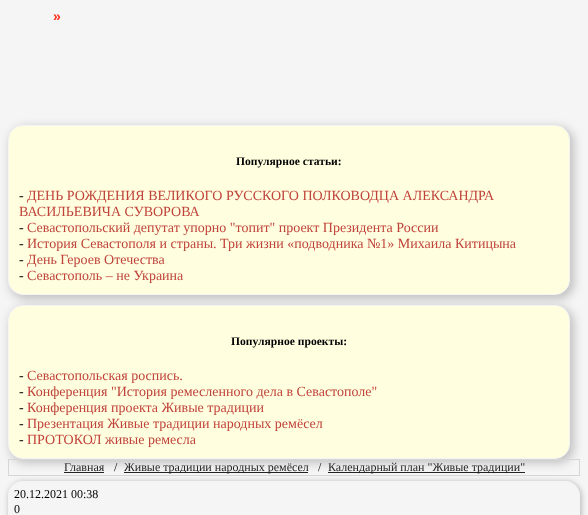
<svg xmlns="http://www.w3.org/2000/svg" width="588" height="515">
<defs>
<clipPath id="clip1"><path d="M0 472h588v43h-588zm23 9h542c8.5 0 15 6.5 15 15v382c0 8.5-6.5 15-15 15h-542c-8.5 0-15-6.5-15-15v-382c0-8.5 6.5-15 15-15z" clip-rule="evenodd"/></clipPath>
</defs>
<rect width="100%" height="100%" fill="#f5f5f6"/>
<text x="53" y="21" style="font-family:Liberation Sans;font-size:14px;font-weight:bold;letter-spacing:2px;fill:#ff2d16">»</text>
<rect x="10" y="127" width="564" height="172" rx="16" fill="#c0c0c0" filter="blur(5px)"/>
<rect x="8.5" y="125.5" width="561" height="169" rx="14.5" fill="#ffffe0" stroke="#f4f4f4"/>
<text x="236" y="165" style="font-family:Liberation Serif;font-size:11.6px;font-weight:bold;fill:#000">Популярное статьи:</text>
<text x="19" y="200" style="font-family:Liberation Serif;font-size:14px;fill:#000">-</text>
<text x="27" y="200" style="font-family:Liberation Serif;font-size:14px;fill:#c0433b">ДЕНЬ РОЖДЕНИЯ ВЕЛИКОГО РУССКОГО ПОЛКОВОДЦА АЛЕКСАНДРА</text>
<text x="19" y="216" style="font-family:Liberation Serif;font-size:14px;fill:#c0433b">ВАСИЛЬЕВИЧА СУВОРОВА</text>
<text x="19" y="232" style="font-family:Liberation Serif;font-size:14px;fill:#000">-</text>
<text x="27" y="232" style="font-family:Liberation Serif;font-size:14px;fill:#c0433b">Севастопольский депутат упорно "топит" проект Президента России</text>
<text x="19" y="248" style="font-family:Liberation Serif;font-size:14px;fill:#000">-</text>
<text x="27" y="248" style="font-family:Liberation Serif;font-size:14px;fill:#c0433b">История Севастополя и страны. Три жизни «подводника №1» Михаила Китицына</text>
<text x="19" y="264" style="font-family:Liberation Serif;font-size:14px;fill:#000">-</text>
<text x="27" y="264" style="font-family:Liberation Serif;font-size:14px;fill:#c0433b">День Героев Отечества</text>
<text x="19" y="280" style="font-family:Liberation Serif;font-size:14px;fill:#000">-</text>
<text x="27" y="280" style="font-family:Liberation Serif;font-size:14px;fill:#c0433b">Севастополь – не Украина</text>
<rect x="10" y="307" width="564" height="156" rx="16" fill="#c0c0c0" filter="blur(5px)"/>
<rect x="8.5" y="305.5" width="561" height="153" rx="14.5" fill="#ffffe0" stroke="#f4f4f4"/>
<text x="231" y="345" style="font-family:Liberation Serif;font-size:11.6px;font-weight:bold;fill:#000">Популярное проекты:</text>
<text x="19" y="380" style="font-family:Liberation Serif;font-size:14px;fill:#000">-</text>
<text x="27" y="380" style="font-family:Liberation Serif;font-size:14px;fill:#c0433b">Севастопольская роспись.</text>
<text x="19" y="396" style="font-family:Liberation Serif;font-size:14px;fill:#000">-</text>
<text x="27" y="396" style="font-family:Liberation Serif;font-size:14px;fill:#c0433b">Конференция "История ремесленного дела в Севастополе"</text>
<text x="19" y="412" style="font-family:Liberation Serif;font-size:14px;fill:#000">-</text>
<text x="27" y="412" style="font-family:Liberation Serif;font-size:14px;fill:#c0433b">Конференция проекта Живые традиции</text>
<text x="19" y="428" style="font-family:Liberation Serif;font-size:14px;fill:#000">-</text>
<text x="27" y="428" style="font-family:Liberation Serif;font-size:14px;fill:#c0433b">Презентация Живые традиции народных ремёсел</text>
<text x="19" y="444" style="font-family:Liberation Serif;font-size:14px;fill:#000">-</text>
<text x="27" y="444" style="font-family:Liberation Serif;font-size:14px;fill:#c0433b">ПРОТОКОЛ живые ремесла</text>
<rect x="8.5" y="459.5" width="571" height="16" fill="none" stroke="#d6d6d6"/>
<text x="64" y="471" style="font-family:Liberation Serif;font-size:12px;fill:#242424">Главная</text>
<rect x="64" y="472" width="40" height="1" fill="#242424"/>
<text x="114" y="471" style="font-family:Liberation Serif;font-size:12px;fill:#000">/</text>
<rect x="124" y="472" width="184" height="1" fill="#242424"/>
<text x="124" y="471" style="font-family:Liberation Serif;font-size:12px;fill:#242424">Живые традиции народных ремёсел</text>
<text x="318" y="471" style="font-family:Liberation Serif;font-size:12px;fill:#000">/</text>
<rect x="328" y="472" width="197" height="1" fill="#242424"/>
<text x="328" y="471" style="font-family:Liberation Serif;font-size:12px;fill:#242424">Календарный план "Живые традиции"</text>
<g clip-path="url(#clip1)">
<rect x="8" y="481" width="574" height="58" rx="16" fill="#c0c0c0" filter="blur(2.5px)"/>
</g>
<rect x="8.5" y="481.5" width="571" height="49" rx="14.5" fill="none" stroke="#f4f4f4"/>
<text x="14" y="498" style="font-family:Liberation Serif;font-size:12px;fill:#000">20.12.2021 00:38</text>
<text x="14" y="513" style="font-family:Liberation Serif;font-size:12px;fill:#000">0</text>
</svg>
